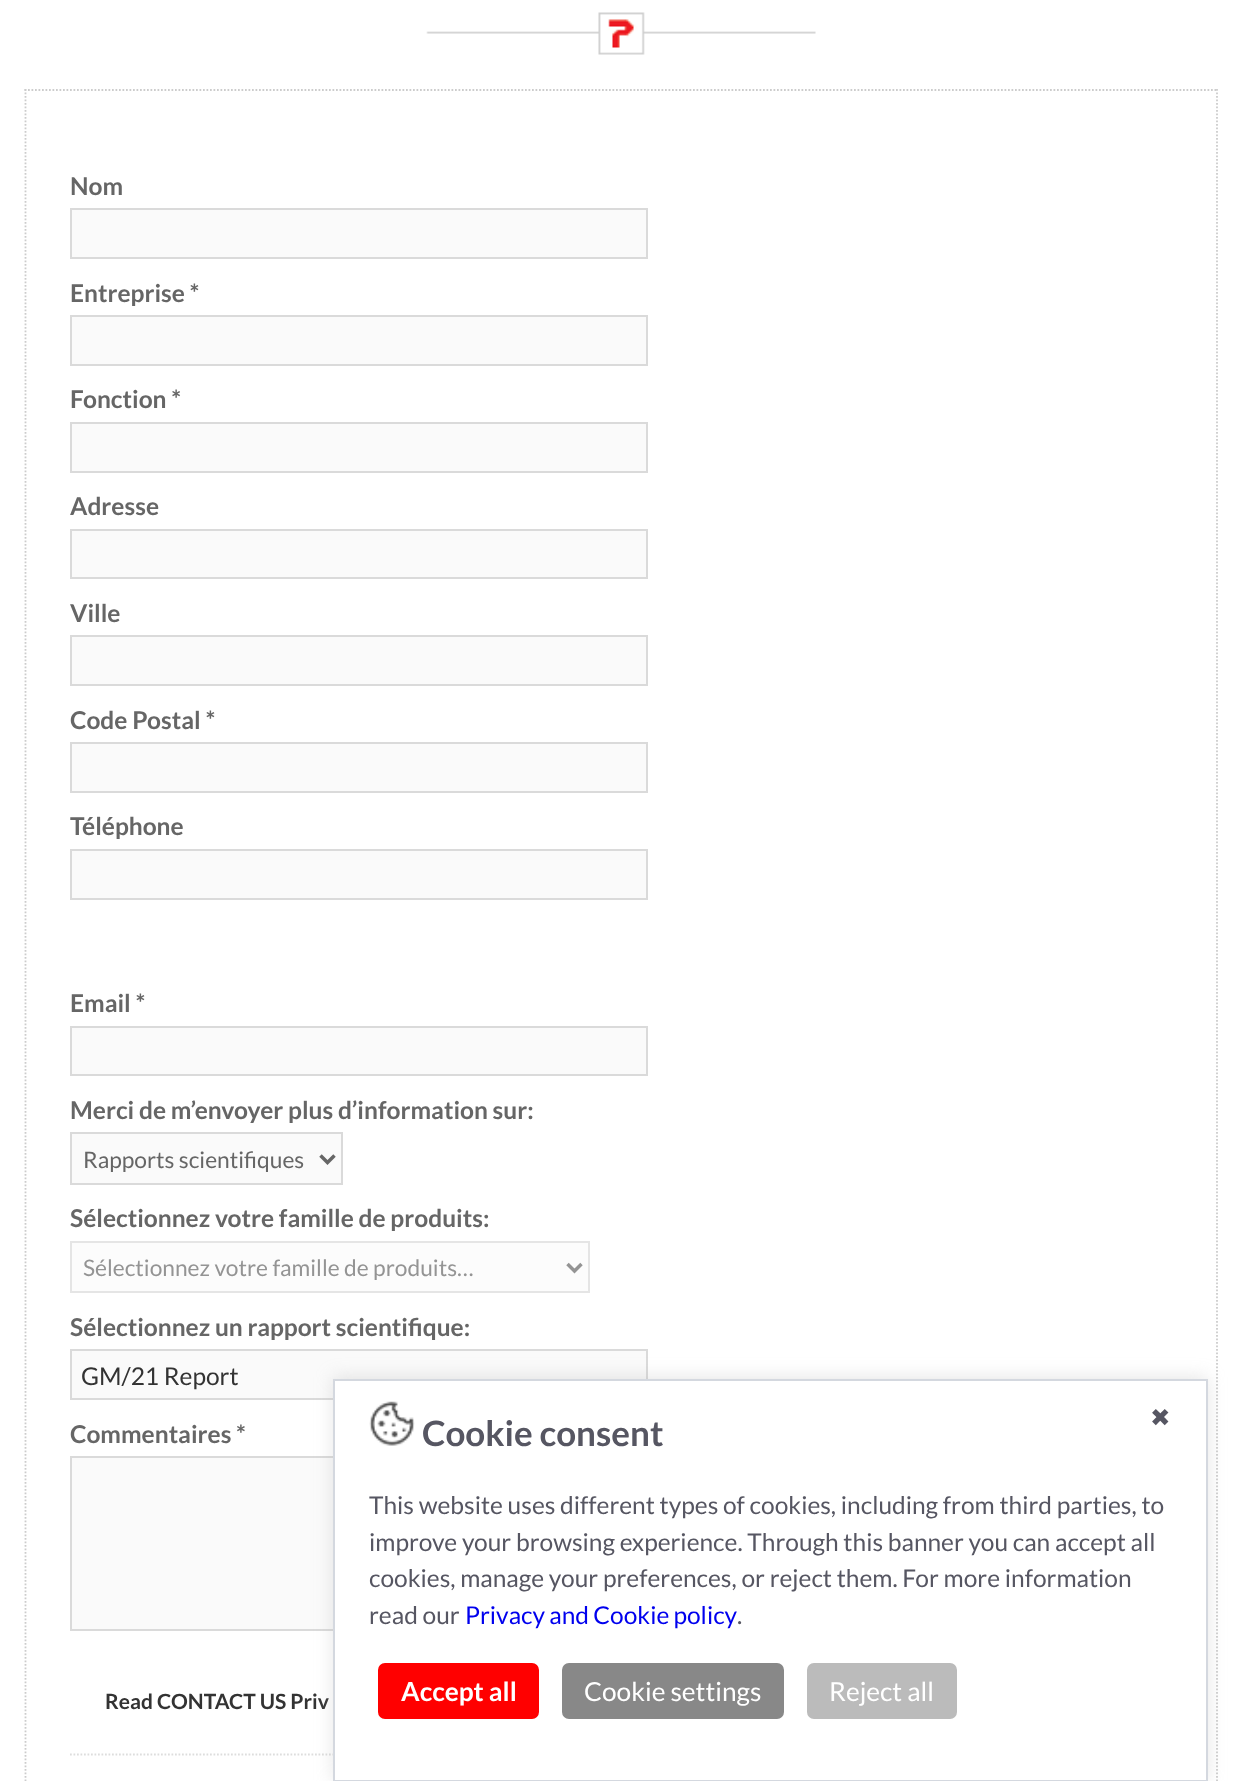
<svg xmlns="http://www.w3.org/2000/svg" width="1241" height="1781">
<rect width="100%" height="100%" fill="#fff"/>
<image x="426" y="12" width="390" height="43" href="media/1.png"/>
<path d="M24.5 90h1193.5" fill="none" stroke="#ccc" stroke-width="1.8" stroke-dasharray="1.75 1.75"/>
<path d="M1217 89v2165" fill="none" stroke="#ccc" stroke-width="1.8" stroke-dasharray="1.75 1.75"/>
<path d="M25.5 89v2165" fill="none" stroke="#ccc" stroke-width="1.8" stroke-dasharray="1.75 1.75"/>
<text x="70" y="195" style="font-family:Lato;font-size:24.5px;font-weight:bold;fill:#666">Nom</text>
<rect x="71" y="209" width="576" height="49" fill="#fafafa" stroke="#dadada" stroke-width="2"/>
<text x="70" y="302" style="font-family:Lato;font-size:24.5px;font-weight:bold;fill:#666">Entreprise *</text>
<rect x="71" y="316" width="576" height="49" fill="#fafafa" stroke="#dadada" stroke-width="2"/>
<text x="70" y="408" style="font-family:Lato;font-size:24.5px;font-weight:bold;fill:#666">Fonction *</text>
<rect x="71" y="423" width="576" height="49" fill="#fafafa" stroke="#dadada" stroke-width="2"/>
<text x="70" y="515" style="font-family:Lato;font-size:24.5px;font-weight:bold;fill:#666">Adresse</text>
<rect x="71" y="530" width="576" height="48" fill="#fafafa" stroke="#dadada" stroke-width="2"/>
<text x="70" y="622" style="font-family:Lato;font-size:24.5px;font-weight:bold;fill:#666">Ville</text>
<rect x="71" y="636" width="576" height="49" fill="#fafafa" stroke="#dadada" stroke-width="2"/>
<text x="70" y="729" style="font-family:Lato;font-size:24.5px;font-weight:bold;fill:#666">Code Postal *</text>
<rect x="71" y="743" width="576" height="49" fill="#fafafa" stroke="#dadada" stroke-width="2"/>
<text x="70" y="835" style="font-family:Lato;font-size:24.5px;font-weight:bold;fill:#666">Téléphone</text>
<rect x="71" y="850" width="576" height="49" fill="#fafafa" stroke="#dadada" stroke-width="2"/>
<text x="70" y="1012" style="font-family:Lato;font-size:24.5px;font-weight:bold;fill:#666">Email *</text>
<rect x="71" y="1027" width="576" height="48" fill="#fafafa" stroke="#dadada" stroke-width="2"/>
<text x="70" y="1119" style="font-family:Lato;font-size:24.5px;font-weight:bold;fill:#666">Merci de m’envoyer plus d’information sur:</text>
<rect x="71" y="1133" width="271" height="51" fill="#fafafa" stroke="#dadada" stroke-width="2"/>
<path d="M320.5 1155.5l7 7l7-7" fill="none" stroke="#666" stroke-width="3.5"/>
<text x="83" y="1168" style="font-family:Lato;font-size:22.75px;fill:#666">Rapports scientifiques</text>
<text x="70" y="1227" style="font-family:Lato;font-size:24.5px;font-weight:bold;fill:#666">Sélectionnez votre famille de produits:</text>
<rect x="71" y="1242" width="518" height="50" fill="#fcfcfc" stroke="#e5e5e5" stroke-width="2"/>
<path d="M567.5 1264l7 7l7-7" fill="none" stroke="#949494" stroke-width="3.5"/>
<text x="83" y="1276" style="font-family:Lato;font-size:22.75px;fill:#949494">Sélectionnez votre famille de produits…</text>
<text x="70" y="1336" style="font-family:Lato;font-size:24.5px;font-weight:bold;fill:#666">Sélectionnez un rapport scientifique:</text>
<rect x="71" y="1350" width="576" height="49" fill="#fafafa" stroke="#dadada" stroke-width="2"/>
<text x="81" y="1385" style="font-family:Lato;font-size:24.5px;fill:#333">GM/21 Report</text>
<text x="70" y="1443" style="font-family:Lato;font-size:24.5px;font-weight:bold;fill:#666">Commentaires *</text>
<rect x="72" y="1458" width="261" height="171" fill="#fafafa"/>
<rect x="71" y="1457" width="1004" height="173" fill="none" stroke="#dadada" stroke-width="2"/>
<path d="M70 1754.5h1059" fill="none" stroke="#ddd" stroke-width="1.8" stroke-dasharray="1.75 1.75"/>
<text x="105" y="1709" style="font-family:Lato;font-size:21px;font-weight:bold;fill:#333">Read CONTACT US Priv</text>
<rect x="333" y="1377" width="875" height="403" fill="#acabab4d" filter="blur(9px)"/>
<rect x="334" y="1380" width="873" height="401" fill="#fff" stroke="#d4d8df" stroke-width="2"/>
<text x="1150" y="1426" style="font-family:DejaVu Sans;font-size:24.5px;fill:#565662">✖</text>
<image x="369" y="1401" width="46" height="45" href="media/2.png"/>
<text x="422" y="1446" style="font-family:Lato;font-size:35px;font-weight:bold;fill:#565662">Cookie consent</text>
<text x="369" y="1514" style="font-family:Lato;font-size:24.5px;fill:#565662">This website uses different types of cookies, including from third parties, to</text>
<text x="369" y="1551" style="font-family:Lato;font-size:24.5px;fill:#565662">improve your browsing experience. Through this banner you can accept all</text>
<text x="369" y="1587" style="font-family:Lato;font-size:24.5px;fill:#565662">cookies, manage your preferences, or reject them. For more information</text>
<text x="369" y="1624" style="font-family:Lato;font-size:24.5px;fill:#565662">read our</text>
<text x="465" y="1624" word-spacing="-0.5" style="font-family:Lato;font-size:24.5px;fill:#00e">Privacy and Cookie policy</text>
<text x="737" y="1624" style="font-family:Lato;font-size:24.5px;fill:#565662">.</text>
<rect x="379" y="1664" width="159" height="54" rx="6" fill="#f00" stroke="#f00" stroke-width="2"/>
<text x="401" y="1701" style="font-family:Lato;font-size:26.25px;font-weight:bold;fill:#fff">Accept all</text>
<rect x="563" y="1664" width="220" height="54" rx="6" fill="#888" stroke="#888" stroke-width="2"/>
<text x="584" y="1701" style="font-family:Lato;font-size:26.25px;fill:#fff">Cookie settings</text>
<rect x="808" y="1664" width="148" height="54" rx="6" fill="#bbb" stroke="#bbb" stroke-width="2"/>
<text x="829" y="1701" style="font-family:Lato;font-size:26.25px;fill:#fff">Reject all</text>
</svg>
